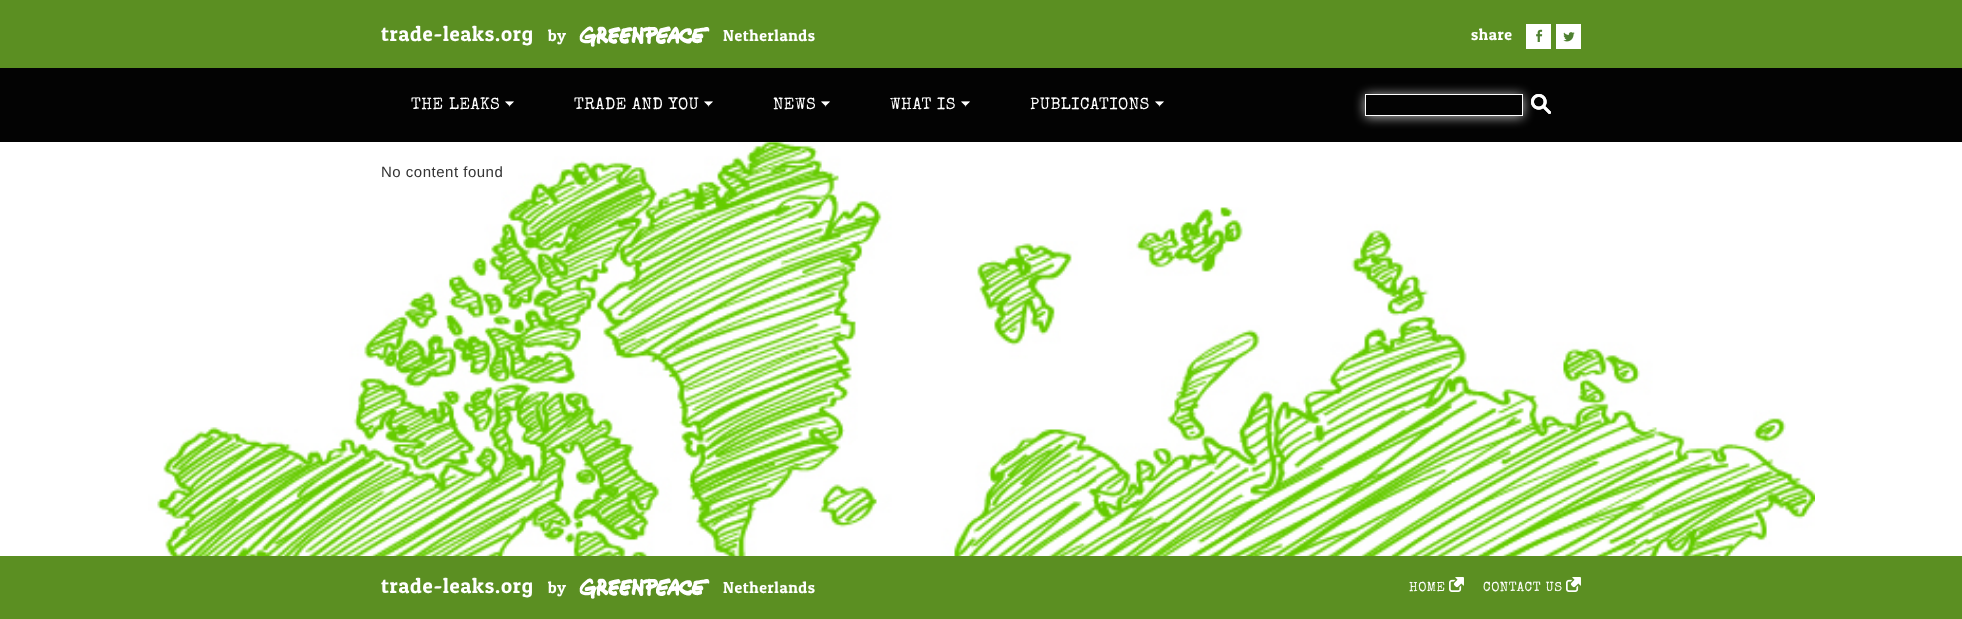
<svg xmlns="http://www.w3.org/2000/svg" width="1962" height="619">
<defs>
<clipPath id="clip1"><path d="M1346 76h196v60h-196zm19 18h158v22h-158z" clip-rule="evenodd"/></clipPath>
</defs>
<rect width="100%" height="100%" fill="#fff"/>
<image x="148" y="142" width="1667" height="414" href="media/1.png"/>
<rect width="1962" height="68" fill="#5b8f22"/>
<text x="381" y="41" style="font-family:Patua One;font-size:21px;letter-spacing:0.8px;fill:#fff">trade-leaks.org</text>
<text x="548" y="41" style="font-family:Patua One;font-size:16px;letter-spacing:0.6px;fill:#fff">by</text>
<image x="579" y="26" width="131" height="21" href="media/2.png"/>
<text x="723" y="41" style="font-family:Patua One;font-size:16px;letter-spacing:0.6px;fill:#fff">Netherlands</text>
<text x="1471" y="40" style="font-family:Patua One;font-size:16px;letter-spacing:0.6px;fill:#fff">share</text>
<image x="1526" y="24" width="25" height="25" href="media/3.png"/>
<image x="1556" y="24" width="25" height="25" href="media/4.png"/>
<rect y="68" width="1962" height="74" fill="#030303"/>
<text x="411" y="109" style="font-family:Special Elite;font-size:16.5px;letter-spacing:0.5px;fill:#fff">THE LEAKS</text>
<image x="505" y="101" width="9" height="6" href="media/5.png"/>
<text x="574" y="109" style="font-family:Special Elite;font-size:16.5px;letter-spacing:0.5px;fill:#fff">TRADE AND YOU</text>
<image x="704" y="101" width="9" height="6" href="media/5.png"/>
<text x="773" y="109" style="font-family:Special Elite;font-size:16.5px;letter-spacing:0.5px;fill:#fff">NEWS</text>
<image x="821" y="101" width="9" height="6" href="media/5.png"/>
<text x="890" y="109" style="font-family:Special Elite;font-size:16.5px;letter-spacing:0.5px;fill:#fff">WHAT IS</text>
<image x="961" y="101" width="9" height="6" href="media/5.png"/>
<text x="1030" y="109" style="font-family:Special Elite;font-size:16.5px;letter-spacing:0.5px;fill:#fff">PUBLICATIONS</text>
<image x="1155" y="101" width="9" height="6" href="media/5.png"/>
<g clip-path="url(#clip1)">
<rect x="1365" y="95" width="158" height="22" fill="#ffffffbf" filter="blur(6px)"/>
</g>
<rect x="1365.5" y="94.5" width="157" height="21" fill="none" stroke="#fff"/>
<image x="1531" y="94" width="20" height="20" href="media/6.png"/>
<text x="381" y="177" style="font-family:Liberation Sans;font-size:15px;letter-spacing:0.5px;fill:#333">No content found</text>
<rect y="556" width="1962" height="63" fill="#5b8f22"/>
<text x="381" y="593" style="font-family:Patua One;font-size:21px;letter-spacing:0.8px;fill:#fff">trade-leaks.org</text>
<text x="548" y="593" style="font-family:Patua One;font-size:16px;letter-spacing:0.6px;fill:#fff">by</text>
<image x="579" y="578" width="131" height="21" href="media/2.png"/>
<text x="723" y="593" style="font-family:Patua One;font-size:16px;letter-spacing:0.6px;fill:#fff">Netherlands</text>
<text x="1409" y="591" style="font-family:Special Elite;font-size:13.25px;letter-spacing:0.5px;fill:#fff">HOME</text>
<image x="1449" y="577" width="15" height="15" href="media/7.png"/>
<text x="1483" y="591" style="font-family:Special Elite;font-size:13.25px;letter-spacing:0.5px;fill:#fff">CONTACT US</text>
<image x="1566" y="577" width="15" height="15" href="media/7.png"/>
</svg>
